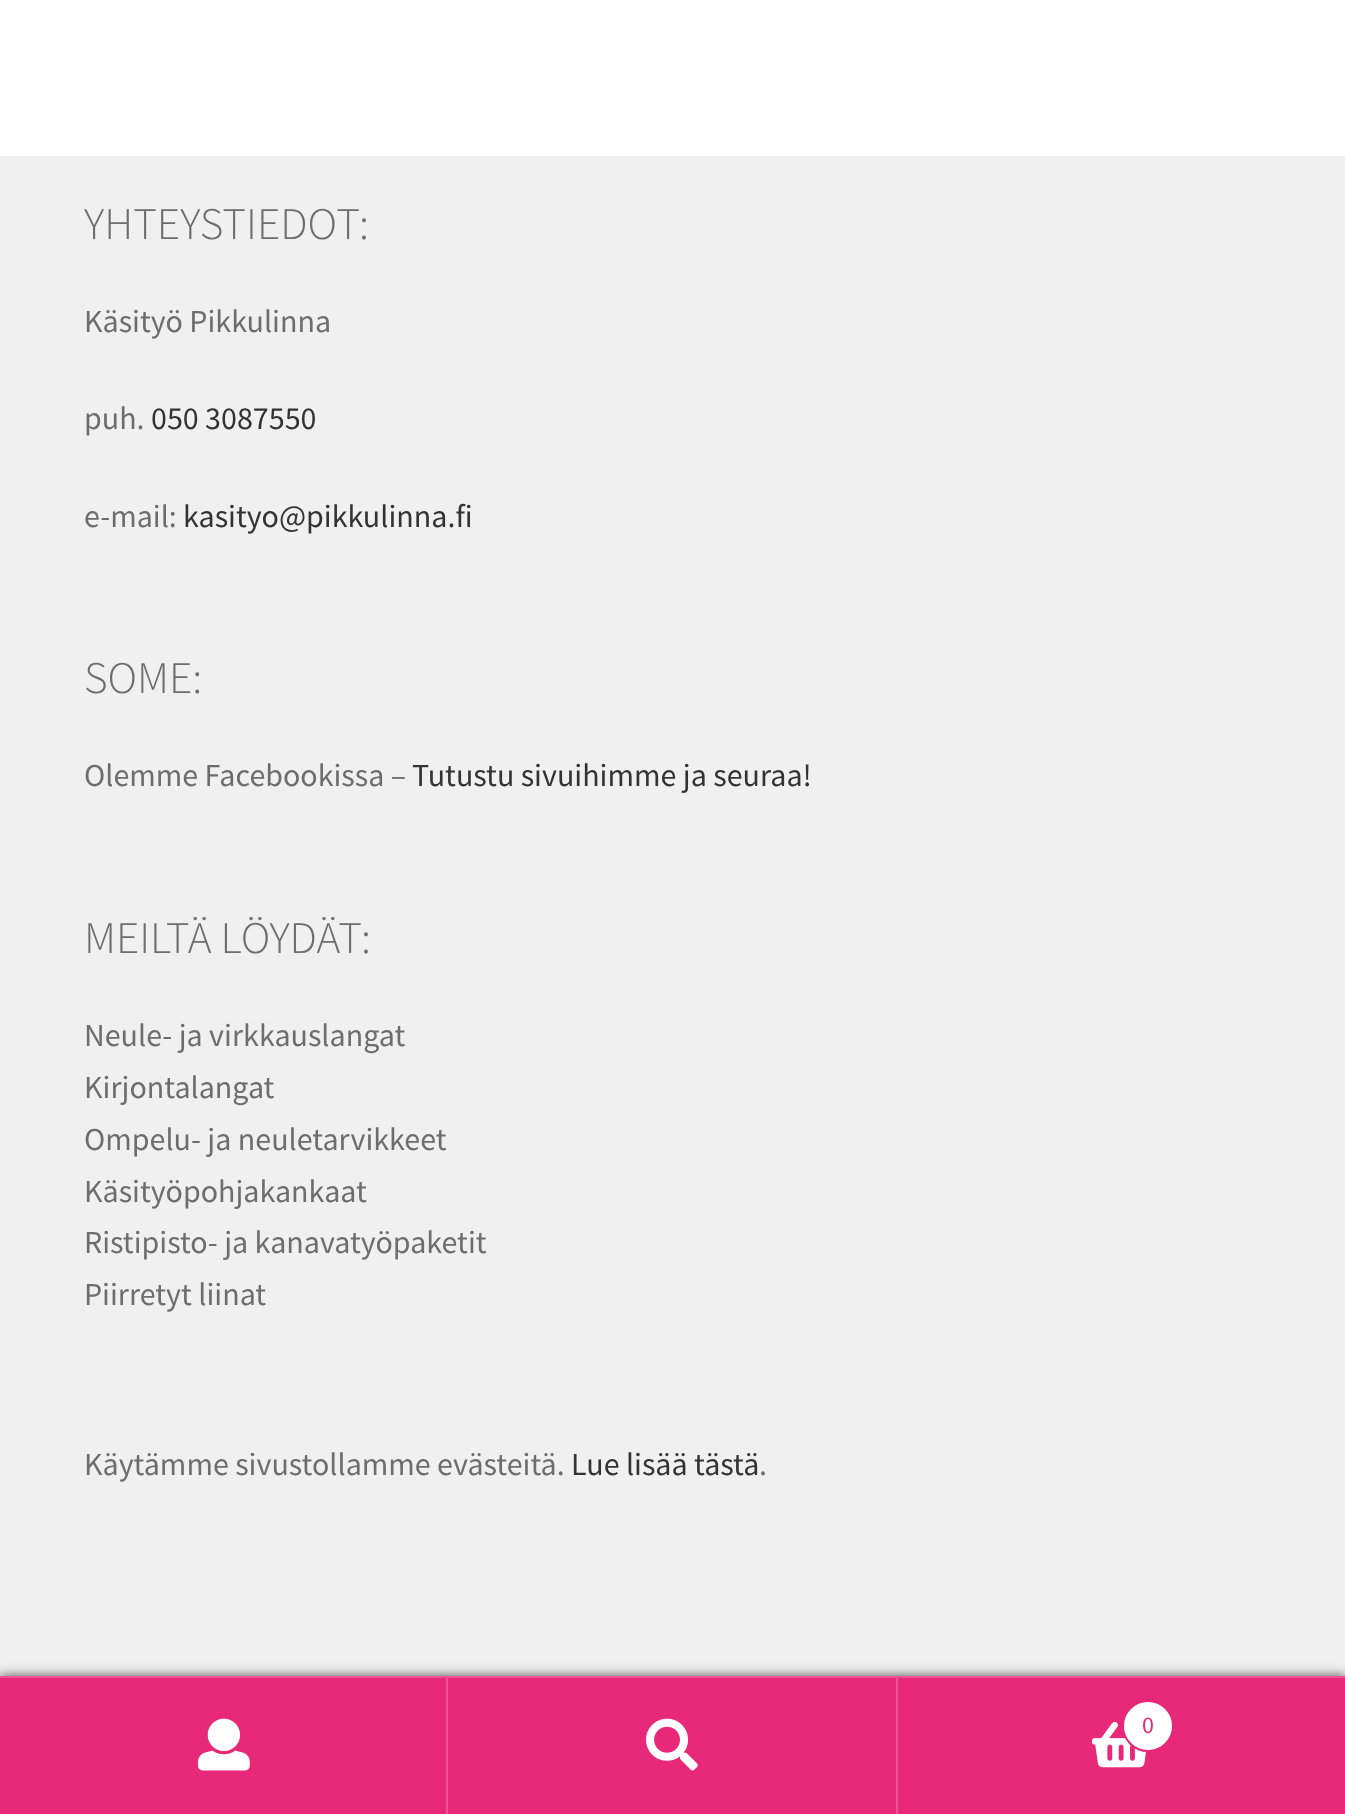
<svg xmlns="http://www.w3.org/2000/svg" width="1345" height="1814">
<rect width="100%" height="100%" fill="#fff"/>
<rect y="156" width="1345" height="1520" fill="#f0f0f0"/>
<text x="84" y="239" style="font-family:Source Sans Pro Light;font-size:45.25px;font-weight:300;fill:#6d6d6d">YHTEYSTIEDOT:</text>
<text x="84" y="332" style="font-family:Source Sans Pro;font-size:32px;fill:#6d6d6d">Käsityö Pikkulinna</text>
<text x="84" y="429" style="font-family:Source Sans Pro;font-size:32px;fill:#6d6d6d">puh.</text>
<text x="151" y="429" style="font-family:Source Sans Pro;font-size:32px;fill:#333">050 3087550</text>
<text x="84" y="527" style="font-family:Source Sans Pro;font-size:32px;fill:#6d6d6d">e-mail:</text>
<text x="183" y="527" style="font-family:Source Sans Pro;font-size:32px;fill:#333">kasityo@pikkulinna.fi</text>
<text x="84" y="693" style="font-family:Source Sans Pro Light;font-size:45.25px;font-weight:300;fill:#6d6d6d">SOME:</text>
<text x="84" y="786" style="font-family:Source Sans Pro;font-size:32px;fill:#6d6d6d">Olemme Facebookissa –</text>
<text x="412" y="786" style="font-family:Source Sans Pro;font-size:32px;fill:#333">Tutustu sivuihimme ja seuraa!</text>
<text x="84" y="953" style="font-family:Source Sans Pro Light;font-size:45.25px;font-weight:300;fill:#6d6d6d">MEILTÄ LÖYDÄT:</text>
<text x="84" y="1046" style="font-family:Source Sans Pro;font-size:32px;fill:#6d6d6d">Neule- ja virkkauslangat</text>
<text x="84" y="1098" style="font-family:Source Sans Pro;font-size:32px;fill:#6d6d6d">Kirjontalangat</text>
<text x="84" y="1150" style="font-family:Source Sans Pro;font-size:32px;fill:#6d6d6d">Ompelu- ja neuletarvikkeet</text>
<text x="84" y="1202" style="font-family:Source Sans Pro;font-size:32px;fill:#6d6d6d">Käsityöpohjakankaat</text>
<text x="84" y="1253" style="font-family:Source Sans Pro;font-size:32px;fill:#6d6d6d">Ristipisto- ja kanavatyöpaketit</text>
<text x="84" y="1305" style="font-family:Source Sans Pro;font-size:32px;fill:#6d6d6d">Piirretyt liinat</text>
<text x="84" y="1475" style="font-family:Source Sans Pro;font-size:32px;fill:#6d6d6d">Käytämme sivustollamme evästeitä.</text>
<text x="571" y="1475" style="font-family:Source Sans Pro;font-size:32px;fill:#333">Lue lisää tästä</text>
<text x="759" y="1475" style="font-family:Source Sans Pro;font-size:32px;fill:#6d6d6d">.</text>
<rect y="1676" width="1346" height="138" fill="#000000b3" filter="blur(6px)"/>
<rect y="1676" width="1345" height="2" fill="#ed5393"/>
<rect y="1678" width="446" height="136" fill="#e82878"/>
<rect x="446" y="1678" width="2" height="136" fill="#ed5393"/>
<image x="198" y="1718" width="52" height="53" href="media/1.png"/>
<rect x="448" y="1678" width="448" height="136" fill="#e82878"/>
<rect x="896" y="1678" width="2" height="136" fill="#ed5393"/>
<image x="646" y="1718" width="52" height="53" href="media/2.png"/>
<rect x="898" y="1678" width="447" height="136" fill="#e82878"/>
<image x="1092" y="1721" width="55" height="47" href="media/3.png"/>
<circle cx="1148" cy="1726" r="25" fill="#fff" stroke="#e82878" stroke-width="2"/>
<text x="1142" y="1733" style="font-family:Source Sans Pro;font-size:24px;fill:#e82878">0</text>
</svg>
